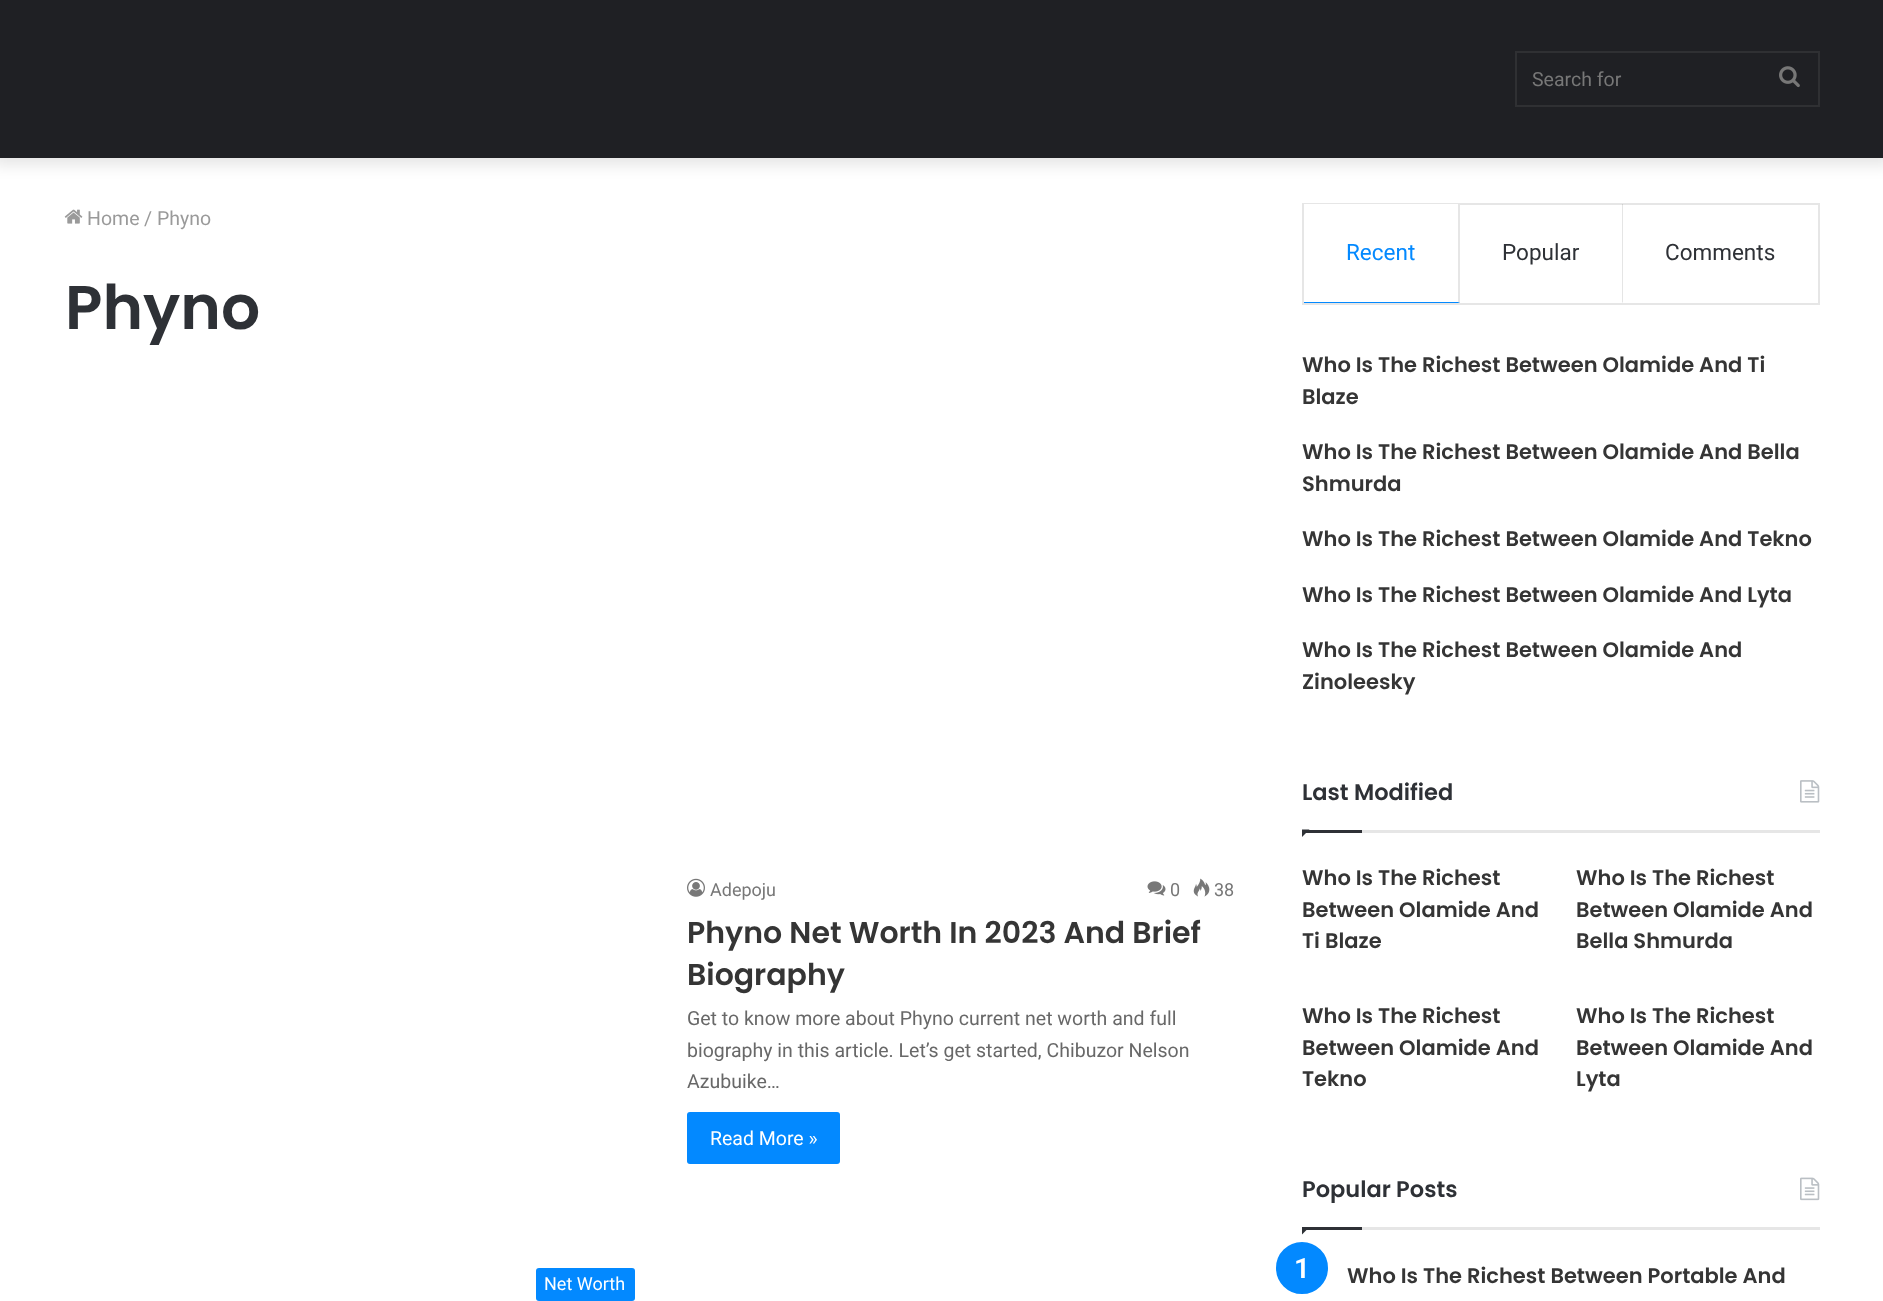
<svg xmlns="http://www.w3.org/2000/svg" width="1883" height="1301">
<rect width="100%" height="100%" fill="#fff"/>
<rect x="-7" y="-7" width="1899" height="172" fill="#0000001a" filter="blur(7.5px)"/>
<rect width="1883" height="158" fill="#1f2024"/>
<rect x="1516" y="52" width="303" height="54" fill="none" stroke="#2f3033" stroke-width="2"/>
<text x="1532" y="86" style="font-family:Roboto;font-size:19.5px;fill:#777">Search for</text>
<image x="1779" y="66" width="21" height="22" href="media/1.png"/>
<image x="64" y="209" width="19" height="15" href="media/2.png"/>
<text x="87" y="225" style="font-family:Roboto;font-size:19.5px;fill:#9a9a9a">Home</text>
<text x="144" y="225" style="font-family:Roboto;font-size:19.5px;fill:#9a9a9a">/</text>
<text x="157" y="225" style="font-family:Roboto;font-size:19.5px;fill:#9a9a9a">Phyno</text>
<text x="65" y="329" style="font-family:Poppins;font-size:61.5px;font-weight:600;fill:#2e3136">Phyno</text>
<image x="687" y="878" width="18" height="19" href="media/3.png"/>
<text x="710" y="896" style="font-family:Roboto;font-size:18px;fill:#777">Adepoju</text>
<image x="1147" y="881" width="19" height="15" href="media/4.png"/>
<text x="1170" y="896" style="font-family:Roboto;font-size:18px;fill:#777">0</text>
<image x="1193" y="878" width="17" height="19" href="media/5.png"/>
<text x="1214" y="896" style="font-family:Roboto;font-size:18px;fill:#777">38</text>
<text x="687" y="943" style="font-family:Poppins;font-size:30px;font-weight:600;fill:#353535">Phyno Net Worth In 2023 And Brief</text>
<text x="687" y="985" style="font-family:Poppins;font-size:30px;font-weight:600;fill:#353535">Biography</text>
<text x="687" y="1025" style="font-family:Roboto;font-size:19.5px;fill:#686868">Get to know more about Phyno current net worth and full</text>
<text x="687" y="1057" style="font-family:Roboto;font-size:19.5px;fill:#686868">biography in this article. Let’s get started, Chibuzor Nelson</text>
<text x="687" y="1088" style="font-family:Roboto;font-size:19.5px;fill:#686868">Azubuike…</text>
<rect x="687" y="1112" width="153" height="52" rx="3" fill="#0389ff"/>
<text x="710" y="1145" style="font-family:Roboto;font-size:19.5px;fill:#fff">Read More »</text>
<rect x="536" y="1268" width="99" height="33" rx="3" fill="#0389ff"/>
<text x="544" y="1290" style="font-family:Roboto;font-size:18px;fill:#fff">Net Worth</text>
<rect x="1303" y="204" width="516" height="100" fill="none" stroke="#e6e6e6" stroke-width="2"/>
<rect x="1304" y="204" width="156" height="1" fill="#fff"/>
<path d="M1460 204v99l-2-1v-98z" fill="#e6e6e6"/>
<path d="M1460 303h-156v-1h154z" fill="#0389ff"/>
<text x="1346" y="260" style="font-family:Roboto;font-size:22.5px;fill:#0389ff">Recent</text>
<path d="M1623 204v99l-1-1v-98z" fill="#0303031a"/>
<text x="1502" y="260" style="font-family:Roboto;font-size:22.5px;fill:#2e3136">Popular</text>
<text x="1665" y="260" style="font-family:Roboto;font-size:22.5px;fill:#2e3136">Comments</text>
<text x="1302" y="372" style="font-family:Poppins;font-size:21px;font-weight:600;fill:#353535">Who Is The Richest Between Olamide And Ti</text>
<text x="1302" y="404" style="font-family:Poppins;font-size:21px;font-weight:600;fill:#353535">Blaze</text>
<text x="1302" y="459" style="font-family:Poppins;font-size:21px;font-weight:600;fill:#353535">Who Is The Richest Between Olamide And Bella</text>
<text x="1302" y="491" style="font-family:Poppins;font-size:21px;font-weight:600;fill:#353535">Shmurda</text>
<text x="1302" y="546" style="font-family:Poppins;font-size:21px;font-weight:600;fill:#353535">Who Is The Richest Between Olamide And Tekno</text>
<text x="1302" y="602" style="font-family:Poppins;font-size:21px;font-weight:600;fill:#353535">Who Is The Richest Between Olamide And Lyta</text>
<text x="1302" y="657" style="font-family:Poppins;font-size:21px;font-weight:600;fill:#353535">Who Is The Richest Between Olamide And</text>
<text x="1302" y="689" style="font-family:Poppins;font-size:21px;font-weight:600;fill:#353535">Zinoleesky</text>
<rect x="1362" y="830" width="458" height="3" fill="#e6e6e6"/>
<text x="1302" y="800" style="font-family:Poppins;font-size:22.5px;font-weight:600;fill:#2e3136">Last Modified</text>
<image x="1800" y="780" width="20" height="23" href="media/6.png"/>
<path d="M1302 829.5h7.5l-7.5 7.5z" fill="#2e3136"/>
<rect x="1302" y="830" width="60" height="3" fill="#2e3136"/>
<text x="1302" y="885" style="font-family:Poppins;font-size:21px;font-weight:600;fill:#353535">Who Is The Richest</text>
<text x="1302" y="917" style="font-family:Poppins;font-size:21px;font-weight:600;fill:#353535">Between Olamide And</text>
<text x="1302" y="948" style="font-family:Poppins;font-size:21px;font-weight:600;fill:#353535">Ti Blaze</text>
<text x="1576" y="885" style="font-family:Poppins;font-size:21px;font-weight:600;fill:#353535">Who Is The Richest</text>
<text x="1576" y="917" style="font-family:Poppins;font-size:21px;font-weight:600;fill:#353535">Between Olamide And</text>
<text x="1576" y="948" style="font-family:Poppins;font-size:21px;font-weight:600;fill:#353535">Bella Shmurda</text>
<text x="1302" y="1023" style="font-family:Poppins;font-size:21px;font-weight:600;fill:#353535">Who Is The Richest</text>
<text x="1302" y="1055" style="font-family:Poppins;font-size:21px;font-weight:600;fill:#353535">Between Olamide And</text>
<text x="1302" y="1086" style="font-family:Poppins;font-size:21px;font-weight:600;fill:#353535">Tekno</text>
<text x="1576" y="1023" style="font-family:Poppins;font-size:21px;font-weight:600;fill:#353535">Who Is The Richest</text>
<text x="1576" y="1055" style="font-family:Poppins;font-size:21px;font-weight:600;fill:#353535">Between Olamide And</text>
<text x="1576" y="1086" style="font-family:Poppins;font-size:21px;font-weight:600;fill:#353535">Lyta</text>
<rect x="1362" y="1227" width="458" height="3" fill="#e6e6e6"/>
<text x="1302" y="1197" style="font-family:Poppins;font-size:22.5px;font-weight:600;fill:#2e3136">Popular Posts</text>
<image x="1800" y="1177" width="20" height="24" href="media/7.png"/>
<path d="M1302 1227h7.5l-7.5 7.5z" fill="#2e3136"/>
<rect x="1302" y="1227" width="60" height="3" fill="#2e3136"/>
<circle cx="1302" cy="1268" r="28" fill="#0389ff" stroke="#fff" stroke-width="4"/>
<text x="1294" y="1278" style="font-family:Roboto;font-size:28px;font-weight:600;fill:#fff">1</text>
<text x="1347" y="1283" style="font-family:Poppins;font-size:21px;font-weight:600;fill:#353535">Who Is The Richest Between Portable And</text>
</svg>
